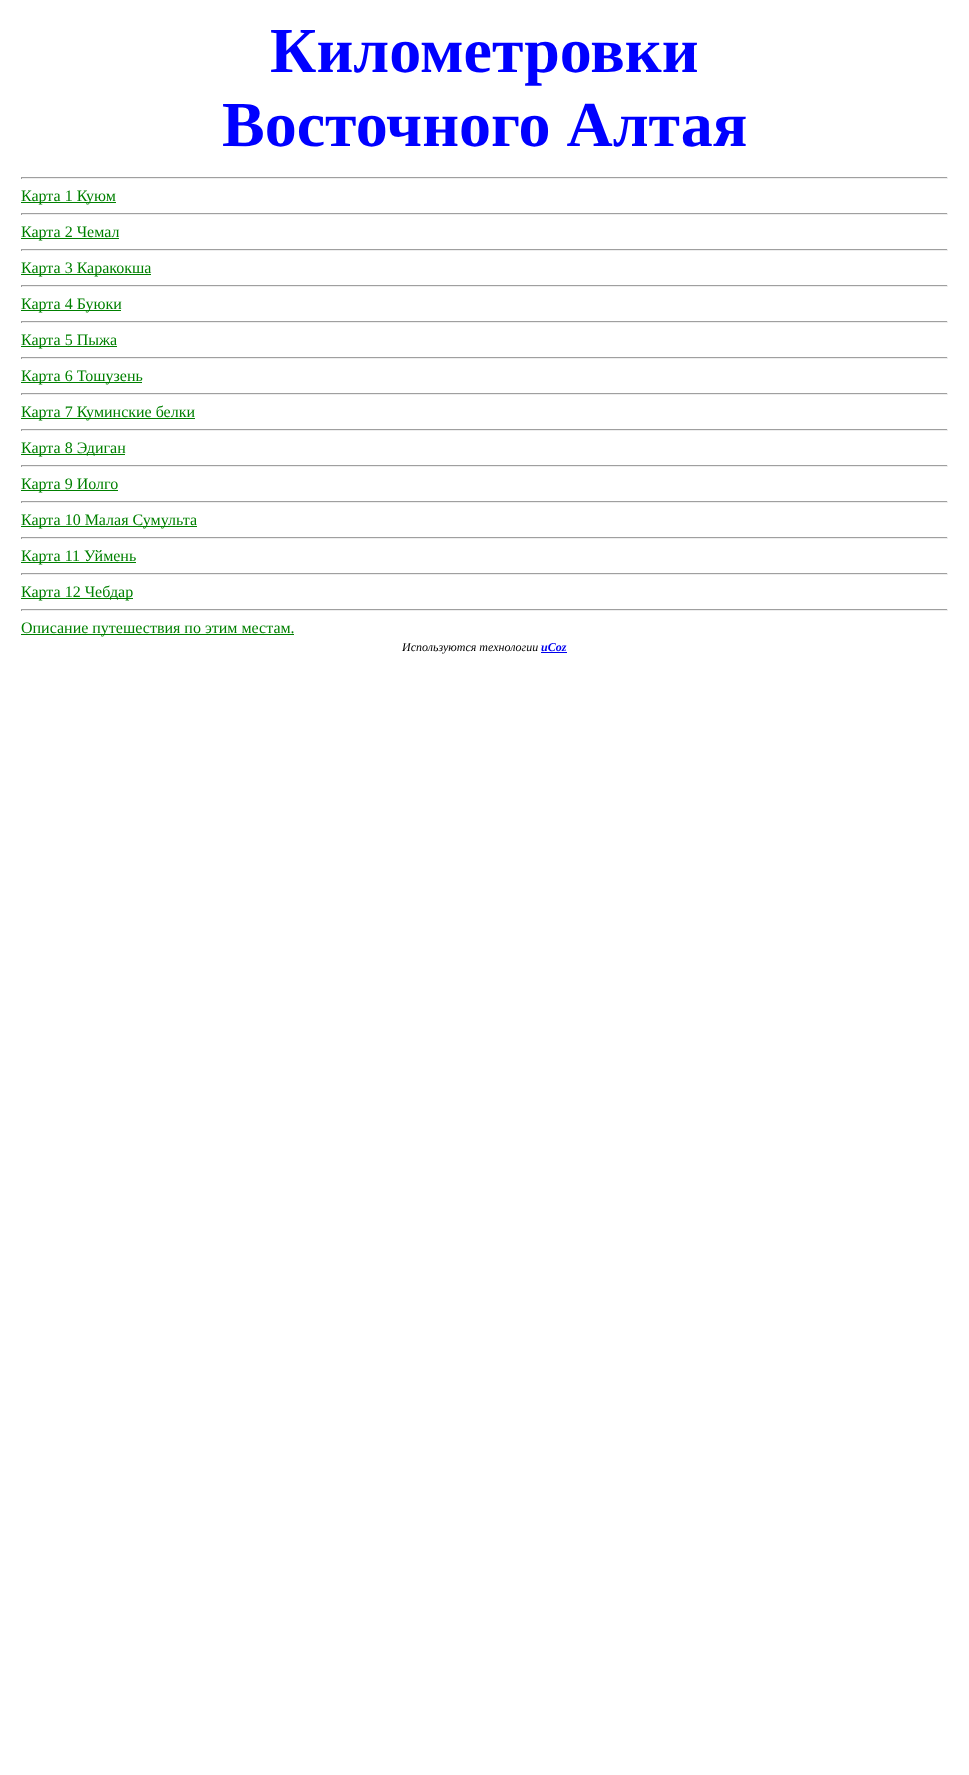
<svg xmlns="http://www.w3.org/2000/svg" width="969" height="1775">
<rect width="100%" height="100%" fill="#fff"/>
<text x="270" y="72" style="font-family:Liberation Serif;font-size:64px;font-weight:bold;fill:#00f">Километровки</text>
<text x="222" y="146" style="font-family:Liberation Serif;font-size:64px;font-weight:bold;fill:#00f">Восточного Алтая</text>
<rect x="21" y="177" width="927" height="1" fill="#9f9f9f"/>
<rect x="947" y="177" width="1" height="2" fill="#eee"/>
<rect x="21" y="178" width="927" height="1" fill="#eee"/>
<rect x="21" y="177" width="1" height="2" fill="#9f9f9f"/>
<rect x="21" y="202" width="95" height="1" fill="#008000"/>
<text x="21" y="201" style="font-family:Liberation Serif;font-size:16px;fill:#008000">Карта 1 Куюм</text>
<rect x="21" y="213" width="927" height="1" fill="#9f9f9f"/>
<rect x="947" y="213" width="1" height="2" fill="#eee"/>
<rect x="21" y="214" width="927" height="1" fill="#eee"/>
<rect x="21" y="213" width="1" height="2" fill="#9f9f9f"/>
<rect x="21" y="238" width="98" height="1" fill="#008000"/>
<text x="21" y="237" style="font-family:Liberation Serif;font-size:16px;fill:#008000">Карта 2 Чемал</text>
<rect x="21" y="249" width="927" height="1" fill="#9f9f9f"/>
<rect x="947" y="249" width="1" height="2" fill="#eee"/>
<rect x="21" y="250" width="927" height="1" fill="#eee"/>
<rect x="21" y="249" width="1" height="2" fill="#9f9f9f"/>
<rect x="21" y="274" width="130" height="1" fill="#008000"/>
<text x="21" y="273" style="font-family:Liberation Serif;font-size:16px;fill:#008000">Карта 3 Каракокша</text>
<rect x="21" y="285" width="927" height="1" fill="#9f9f9f"/>
<rect x="947" y="285" width="1" height="2" fill="#eee"/>
<rect x="21" y="286" width="927" height="1" fill="#eee"/>
<rect x="21" y="285" width="1" height="2" fill="#9f9f9f"/>
<rect x="21" y="310" width="100" height="1" fill="#008000"/>
<text x="21" y="309" style="font-family:Liberation Serif;font-size:16px;fill:#008000">Карта 4 Буюки</text>
<rect x="21" y="321" width="927" height="1" fill="#9f9f9f"/>
<rect x="947" y="321" width="1" height="2" fill="#eee"/>
<rect x="21" y="322" width="927" height="1" fill="#eee"/>
<rect x="21" y="321" width="1" height="2" fill="#9f9f9f"/>
<rect x="21" y="346" width="96" height="1" fill="#008000"/>
<text x="21" y="345" style="font-family:Liberation Serif;font-size:16px;fill:#008000">Карта 5 Пыжа</text>
<rect x="21" y="357" width="927" height="1" fill="#9f9f9f"/>
<rect x="947" y="357" width="1" height="2" fill="#eee"/>
<rect x="21" y="358" width="927" height="1" fill="#eee"/>
<rect x="21" y="357" width="1" height="2" fill="#9f9f9f"/>
<rect x="21" y="382" width="121" height="1" fill="#008000"/>
<text x="21" y="381" style="font-family:Liberation Serif;font-size:16px;fill:#008000">Карта 6 Тошузень</text>
<rect x="21" y="393" width="927" height="1" fill="#9f9f9f"/>
<rect x="947" y="393" width="1" height="2" fill="#eee"/>
<rect x="21" y="394" width="927" height="1" fill="#eee"/>
<rect x="21" y="393" width="1" height="2" fill="#9f9f9f"/>
<rect x="21" y="418" width="174" height="1" fill="#008000"/>
<text x="21" y="417" style="font-family:Liberation Serif;font-size:16px;fill:#008000">Карта 7 Куминские белки</text>
<rect x="21" y="429" width="927" height="1" fill="#9f9f9f"/>
<rect x="947" y="429" width="1" height="2" fill="#eee"/>
<rect x="21" y="430" width="927" height="1" fill="#eee"/>
<rect x="21" y="429" width="1" height="2" fill="#9f9f9f"/>
<rect x="21" y="454" width="104" height="1" fill="#008000"/>
<text x="21" y="453" style="font-family:Liberation Serif;font-size:16px;fill:#008000">Карта 8 Эдиган</text>
<rect x="21" y="465" width="927" height="1" fill="#9f9f9f"/>
<rect x="947" y="465" width="1" height="2" fill="#eee"/>
<rect x="21" y="466" width="927" height="1" fill="#eee"/>
<rect x="21" y="465" width="1" height="2" fill="#9f9f9f"/>
<rect x="21" y="490" width="97" height="1" fill="#008000"/>
<text x="21" y="489" style="font-family:Liberation Serif;font-size:16px;fill:#008000">Карта 9 Иолго</text>
<rect x="21" y="501" width="927" height="1" fill="#9f9f9f"/>
<rect x="947" y="501" width="1" height="2" fill="#eee"/>
<rect x="21" y="502" width="927" height="1" fill="#eee"/>
<rect x="21" y="501" width="1" height="2" fill="#9f9f9f"/>
<rect x="21" y="526" width="176" height="1" fill="#008000"/>
<text x="21" y="525" style="font-family:Liberation Serif;font-size:16px;fill:#008000">Карта 10 Малая Сумульта</text>
<rect x="21" y="537" width="927" height="1" fill="#9f9f9f"/>
<rect x="947" y="537" width="1" height="2" fill="#eee"/>
<rect x="21" y="538" width="927" height="1" fill="#eee"/>
<rect x="21" y="537" width="1" height="2" fill="#9f9f9f"/>
<rect x="21" y="562" width="115" height="1" fill="#008000"/>
<text x="21" y="561" style="font-family:Liberation Serif;font-size:16px;fill:#008000">Карта 11 Уймень</text>
<rect x="21" y="573" width="927" height="1" fill="#9f9f9f"/>
<rect x="947" y="573" width="1" height="2" fill="#eee"/>
<rect x="21" y="574" width="927" height="1" fill="#eee"/>
<rect x="21" y="573" width="1" height="2" fill="#9f9f9f"/>
<rect x="21" y="598" width="112" height="1" fill="#008000"/>
<text x="21" y="597" style="font-family:Liberation Serif;font-size:16px;fill:#008000">Карта 12 Чебдар</text>
<rect x="21" y="609" width="927" height="1" fill="#9f9f9f"/>
<rect x="947" y="609" width="1" height="2" fill="#eee"/>
<rect x="21" y="610" width="927" height="1" fill="#eee"/>
<rect x="21" y="609" width="1" height="2" fill="#9f9f9f"/>
<rect x="21" y="634" width="273" height="1" fill="#008000"/>
<text x="21" y="633" style="font-family:Liberation Serif;font-size:16px;fill:#008000">Описание путешествия по этим местам.</text>
<text x="402" y="651" style="font-family:Liberation Serif;font-size:12px;font-style:italic;fill:#000">Используются технологии</text>
<text x="541" y="651" style="font-family:Liberation Serif;font-size:12px;font-weight:bold;font-style:italic;fill:#00e">uCoz</text>
<rect x="541" y="652" width="26" height="1" fill="#00e"/>
</svg>
